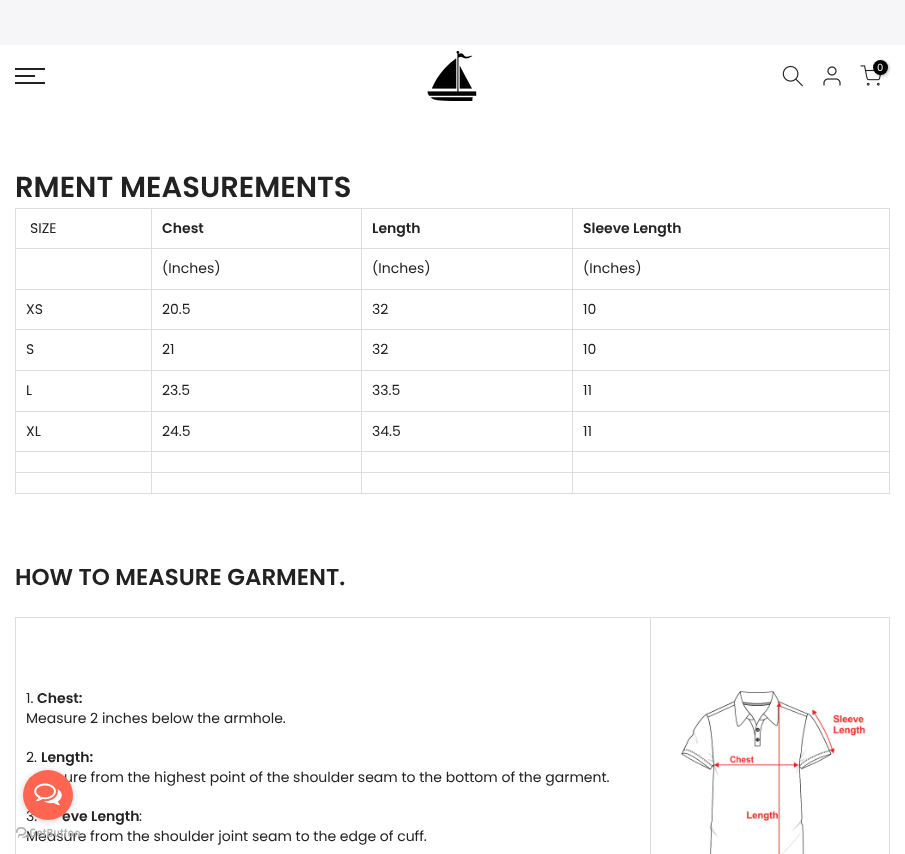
<svg xmlns="http://www.w3.org/2000/svg" width="905" height="854">
<rect width="100%" height="100%" fill="#fff"/>
<rect width="905" height="45" fill="#f6f6f8"/>
<image x="427" y="51" width="50" height="50" href="media/1.png"/>
<image x="782" y="65" width="21" height="22" href="media/2.png"/>
<image x="823" y="66" width="18" height="20" href="media/3.png"/>
<image x="860" y="65" width="21" height="21" href="media/4.png"/>
<rect x="874" y="61" width="15" height="15" rx="7.5" fill="#0000004d" filter="blur(1.5px)"/>
<circle cx="880.5" cy="67.5" r="7.5" fill="#000"/>
<text x="877" y="71" style="font-family:Poppins;font-size:10px;fill:#fff">0</text>
<rect x="15" y="68" width="30" height="2" fill="#222"/>
<rect x="15" y="75" width="20" height="2" fill="#222"/>
<rect x="15" y="82" width="30" height="2" fill="#222"/>
<text x="15" y="197" style="font-family:Poppins;font-size:29px;font-weight:600;fill:#222">RMENT MEASUREMENTS</text>
<rect x="15" y="208" width="875" height="1" fill="#ddd"/>
<rect x="889" y="208" width="1" height="286" fill="#ddd"/>
<rect x="15" y="493" width="875" height="1" fill="#ddd"/>
<rect x="15" y="208" width="1" height="286" fill="#ddd"/>
<rect x="572" y="472" width="1" height="22" fill="#ddd"/>
<rect x="572" y="472" width="318" height="1" fill="#ddd"/>
<rect x="572" y="451" width="1" height="22" fill="#ddd"/>
<rect x="572" y="451" width="318" height="1" fill="#ddd"/>
<rect x="572" y="411" width="1" height="41" fill="#ddd"/>
<rect x="572" y="411" width="318" height="1" fill="#ddd"/>
<rect x="572" y="370" width="1" height="42" fill="#ddd"/>
<rect x="572" y="370" width="318" height="1" fill="#ddd"/>
<rect x="572" y="329" width="1" height="42" fill="#ddd"/>
<rect x="572" y="329" width="318" height="1" fill="#ddd"/>
<rect x="572" y="289" width="1" height="41" fill="#ddd"/>
<rect x="572" y="289" width="318" height="1" fill="#ddd"/>
<rect x="572" y="248" width="1" height="42" fill="#ddd"/>
<rect x="572" y="248" width="318" height="1" fill="#ddd"/>
<rect x="572" y="208" width="1" height="41" fill="#ddd"/>
<rect x="361" y="472" width="1" height="22" fill="#ddd"/>
<rect x="361" y="472" width="212" height="1" fill="#ddd"/>
<rect x="361" y="451" width="1" height="22" fill="#ddd"/>
<rect x="361" y="451" width="212" height="1" fill="#ddd"/>
<rect x="361" y="411" width="1" height="41" fill="#ddd"/>
<rect x="361" y="411" width="212" height="1" fill="#ddd"/>
<rect x="361" y="370" width="1" height="42" fill="#ddd"/>
<rect x="361" y="370" width="212" height="1" fill="#ddd"/>
<rect x="361" y="329" width="1" height="42" fill="#ddd"/>
<rect x="361" y="329" width="212" height="1" fill="#ddd"/>
<rect x="361" y="289" width="1" height="41" fill="#ddd"/>
<rect x="361" y="289" width="212" height="1" fill="#ddd"/>
<rect x="361" y="248" width="1" height="42" fill="#ddd"/>
<rect x="361" y="248" width="212" height="1" fill="#ddd"/>
<rect x="361" y="208" width="1" height="41" fill="#ddd"/>
<rect x="151" y="472" width="1" height="22" fill="#ddd"/>
<rect x="151" y="472" width="211" height="1" fill="#ddd"/>
<rect x="151" y="451" width="1" height="22" fill="#ddd"/>
<rect x="151" y="451" width="211" height="1" fill="#ddd"/>
<rect x="151" y="411" width="1" height="41" fill="#ddd"/>
<rect x="151" y="411" width="211" height="1" fill="#ddd"/>
<rect x="151" y="370" width="1" height="42" fill="#ddd"/>
<rect x="151" y="370" width="211" height="1" fill="#ddd"/>
<rect x="151" y="329" width="1" height="42" fill="#ddd"/>
<rect x="151" y="329" width="211" height="1" fill="#ddd"/>
<rect x="151" y="289" width="1" height="41" fill="#ddd"/>
<rect x="151" y="289" width="211" height="1" fill="#ddd"/>
<rect x="151" y="248" width="1" height="42" fill="#ddd"/>
<rect x="151" y="248" width="211" height="1" fill="#ddd"/>
<rect x="151" y="208" width="1" height="41" fill="#ddd"/>
<rect x="15" y="248" width="137" height="1" fill="#ddd"/>
<text x="30" y="233" style="font-family:Poppins;font-size:14px;fill:#222">SIZE</text>
<text x="162" y="233" style="font-family:Poppins;font-size:14px;font-weight:600;fill:#222">Chest</text>
<text x="372" y="233" style="font-family:Poppins;font-size:14px;font-weight:600;fill:#222">Length</text>
<text x="583" y="233" style="font-family:Poppins;font-size:14px;font-weight:600;fill:#222">Sleeve Length</text>
<rect x="15" y="289" width="137" height="1" fill="#ddd"/>
<text x="162" y="273" style="font-family:Poppins;font-size:14px;fill:#222">(Inches)</text>
<text x="372" y="273" style="font-family:Poppins;font-size:14px;fill:#222">(Inches)</text>
<text x="583" y="273" style="font-family:Poppins;font-size:14px;fill:#222">(Inches)</text>
<rect x="15" y="329" width="137" height="1" fill="#ddd"/>
<text x="26" y="314" style="font-family:Poppins;font-size:14px;fill:#222">XS</text>
<text x="162" y="314" style="font-family:Poppins;font-size:14px;fill:#222">20.5</text>
<text x="372" y="314" style="font-family:Poppins;font-size:14px;fill:#222">32</text>
<text x="583" y="314" style="font-family:Poppins;font-size:14px;fill:#222">10</text>
<rect x="15" y="370" width="137" height="1" fill="#ddd"/>
<text x="26" y="354" style="font-family:Poppins;font-size:14px;fill:#222">S</text>
<text x="162" y="354" style="font-family:Poppins;font-size:14px;fill:#222">21</text>
<text x="372" y="354" style="font-family:Poppins;font-size:14px;fill:#222">32</text>
<text x="583" y="354" style="font-family:Poppins;font-size:14px;fill:#222">10</text>
<rect x="15" y="411" width="137" height="1" fill="#ddd"/>
<text x="26" y="395" style="font-family:Poppins;font-size:14px;fill:#222">L</text>
<text x="162" y="395" style="font-family:Poppins;font-size:14px;fill:#222">23.5</text>
<text x="372" y="395" style="font-family:Poppins;font-size:14px;fill:#222">33.5</text>
<text x="583" y="395" style="font-family:Poppins;font-size:14px;fill:#222">11</text>
<rect x="15" y="451" width="137" height="1" fill="#ddd"/>
<text x="26" y="436" style="font-family:Poppins;font-size:14px;fill:#222">XL</text>
<text x="162" y="436" style="font-family:Poppins;font-size:14px;fill:#222">24.5</text>
<text x="372" y="436" style="font-family:Poppins;font-size:14px;fill:#222">34.5</text>
<text x="583" y="436" style="font-family:Poppins;font-size:14px;fill:#222">11</text>
<rect x="15" y="472" width="137" height="1" fill="#ddd"/>
<text x="15" y="585" style="font-family:Poppins;font-size:23px;font-weight:600;fill:#222">HOW TO MEASURE GARMENT.</text>
<rect x="15" y="617" width="875" height="1" fill="#ddd"/>
<rect x="889" y="617" width="1" height="237" fill="#ddd"/>
<rect x="15" y="617" width="1" height="237" fill="#ddd"/>
<rect x="650" y="617" width="1" height="237" fill="#ddd"/>
<text x="26" y="703" style="font-family:Poppins;font-size:14px;fill:#222">1.</text>
<text x="37" y="703" style="font-family:Poppins;font-size:14px;font-weight:600;fill:#222">Chest:</text>
<text x="26" y="723" style="font-family:Poppins;font-size:14px;fill:#222">Measure 2 inches below the armhole.</text>
<text x="26" y="762" style="font-family:Poppins;font-size:14px;fill:#222">2.</text>
<text x="41" y="762" style="font-family:Poppins;font-size:14px;font-weight:600;fill:#222">Length:</text>
<text x="64" y="782" style="font-family:Poppins;font-size:14px;fill:#222">ure from the highest point of the shoulder seam to the bottom of the garment.</text>
<text x="26" y="821" style="font-family:Poppins;font-size:14px;fill:#222">3.</text>
<text x="62" y="821" style="font-family:Poppins;font-size:14px;font-weight:600;fill:#222">eve Length</text>
<text x="139" y="821" style="font-family:Poppins;font-size:14px;fill:#222">:</text>
<text x="26" y="841" style="font-family:Poppins;font-size:14px;fill:#222">Measure from the shoulder joint seam to the edge of cuff.</text>
<image x="681" y="691" width="185" height="163" href="media/5.png"/>
<image x="16" y="827" width="64" height="11" href="media/7.png"/>
<rect x="23" y="771" width="50" height="50" rx="25" fill="#88888866" filter="blur(3.5px)"/>
<circle cx="48" cy="795" r="25" fill="#ff6550"/>
<image x="34" y="783" width="28" height="23" href="media/6.png"/>
</svg>
